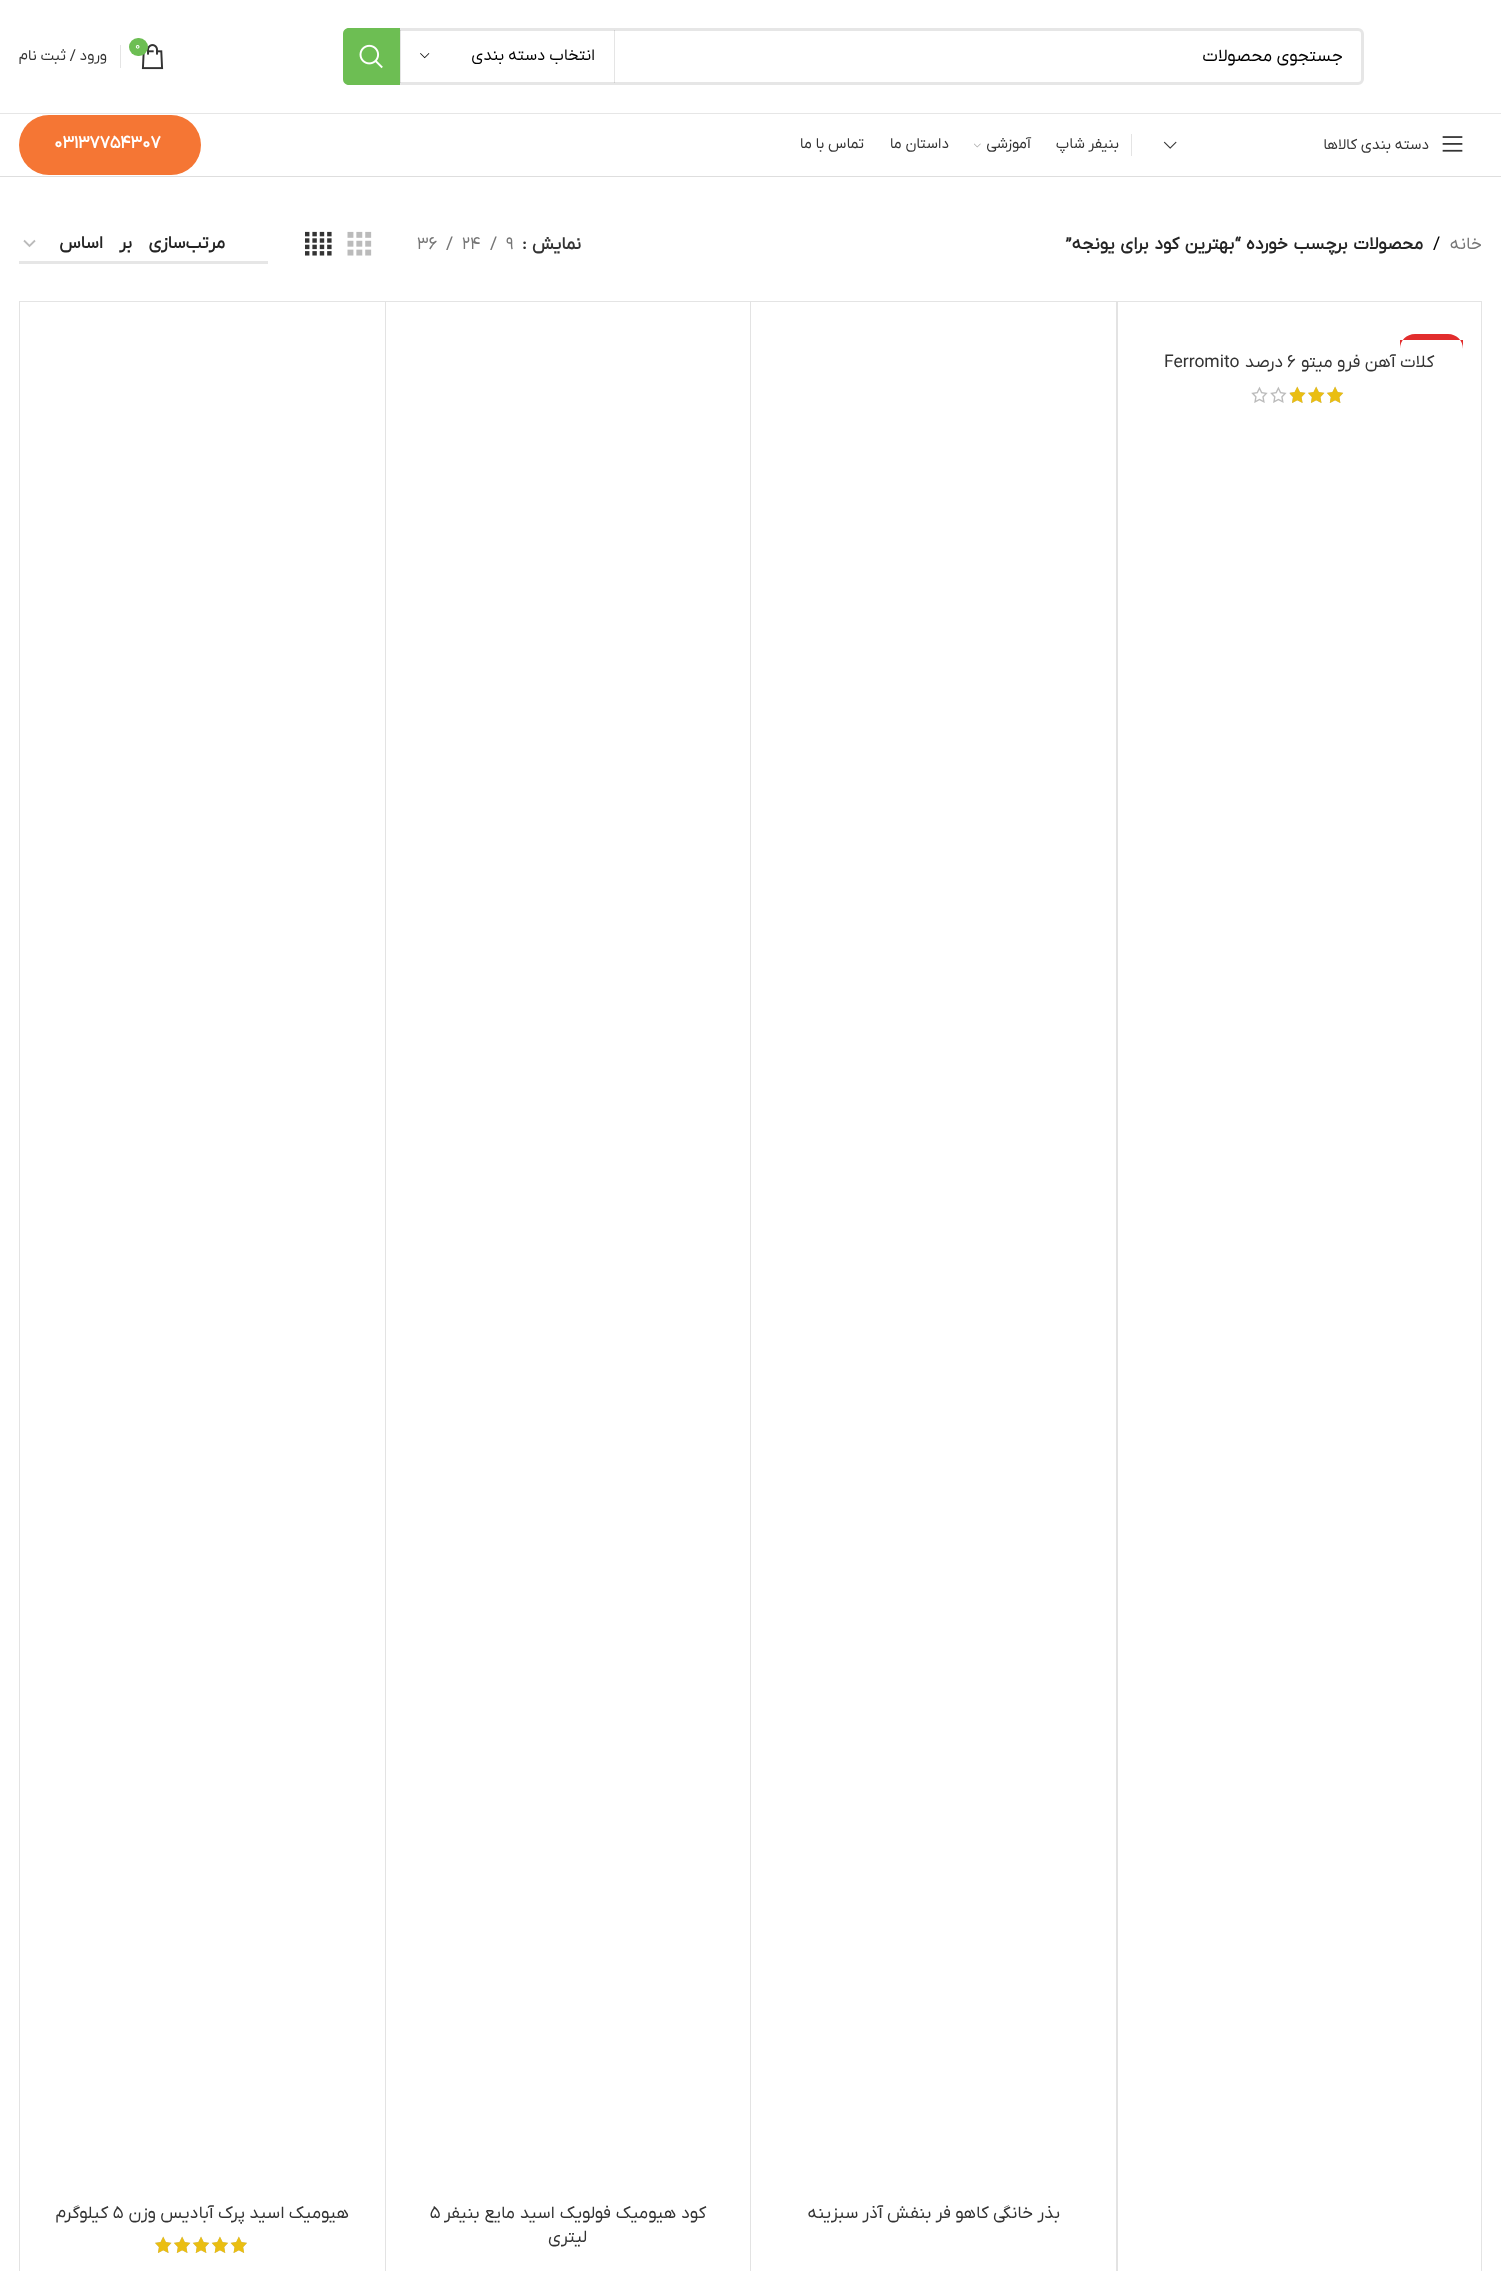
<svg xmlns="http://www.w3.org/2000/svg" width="1501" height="2271">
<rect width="100%" height="100%" fill="#fff"/>
<rect y="113" width="1501" height="1" fill="#e6e6e6"/>
<rect x="344.5" y="29.5" width="1018" height="54" rx="4.5" fill="none" stroke="#e6e6e6" stroke-width="3"/>
<text x="1343" y="61" style="font-family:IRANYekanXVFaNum;font-size:17.5px;direction:rtl;fill:#000">جستجوی محصولات</text>
<rect x="614" y="30" width="1" height="53" fill="#0000001a"/>
<rect x="400" y="30" width="1" height="53" fill="#0000001a"/>
<text x="595" y="60" style="font-family:IRANYekanXVFaNum;font-size:16.25px;direction:rtl;fill:#000">انتخاب دسته بندی</text>
<image x="420" y="53" width="10" height="6" href="media/1.png"/>
<path d="M349 28h51v57h-51c-3.5 0-6-2.5-6-6v-45c0-3.5 2.5-6 6-6z" fill="#6dbe53"/>
<image x="359" y="44" width="24" height="25" href="media/2.png"/>
<image x="141" y="44" width="23" height="26" href="media/3.png"/>
<rect x="129" y="38" width="19" height="18" rx="9" fill="#6dbe53"/>
<text x="135" y="49" style="font-family:IRANYekanXVFaNum;font-size:11px;fill:#fff">0</text>
<rect x="120" y="45" width="1" height="23" fill="#e4e4e4"/>
<text x="107" y="60" style="font-family:IRANYekanXVFaNum;font-size:15px;direction:rtl;fill:#333">ورود / ثبت نام</text>
<rect y="176" width="1501" height="1" fill="#dedede"/>
<image x="1442" y="136" width="21" height="16" href="media/4.png"/>
<text x="1429" y="149" style="font-family:IRANYekanXVFaNum;font-size:15px;direction:rtl;fill:#333">دسته بندی کالاها</text>
<image x="1163" y="141" width="14" height="8" href="media/5.png"/>
<rect x="1131" y="134" width="1" height="22" fill="#e4e4e4"/>
<text x="1119" y="148" style="font-family:IRANYekanXVFaNum;font-size:15px;direction:rtl;fill:#333">بنیفر شاپ</text>
<text x="1031" y="148" style="font-family:IRANYekanXVFaNum;font-size:15px;direction:rtl;fill:#333">آموزشی</text>
<image x="974" y="143" width="7" height="5" href="media/6.png"/>
<text x="949" y="148" style="font-family:IRANYekanXVFaNum;font-size:15px;direction:rtl;fill:#333">داستان ما</text>
<text x="864" y="148" style="font-family:IRANYekanXVFaNum;font-size:15px;direction:rtl;fill:#333">تماس با ما</text>
<rect x="19" y="115" width="182" height="60" rx="30" fill="#f57634"/>
<text x="54" y="148" style="font-family:IRANYekanXVFaNum;font-size:17.5px;font-weight:bold;fill:#fff">03137754307</text>
<text x="1482" y="249" style="font-family:IRANYekanXVFaNum;font-size:17.5px;direction:rtl;fill:#767676">خانه</text>
<text x="1433" y="249" style="font-family:IRANYekanXVFaNum;font-size:17.5px;fill:#000">/</text>
<text x="1423" y="249" word-spacing="1.25" style="font-family:IRANYekanXVFaNum;font-size:17.5px;font-weight:bold;direction:rtl;fill:#242424">محصولات برچسب خورده “بهترین کود برای یونجه”</text>
<text x="581" y="249" style="font-family:IRANYekanXVFaNum;font-size:17.5px;font-weight:bold;direction:rtl;fill:#333">نمایش</text>
<text x="522" y="249" style="font-family:IRANYekanXVFaNum;font-size:17.5px;font-weight:bold;fill:#333">:</text>
<text x="506" y="249" style="font-family:IRANYekanXVFaNum;font-size:17.5px;fill:#767676">9</text>
<text x="490" y="249" style="font-family:IRANYekanXVFaNum;font-size:17.5px;fill:#767676">/</text>
<text x="462" y="249" style="font-family:IRANYekanXVFaNum;font-size:17.5px;fill:#767676">24</text>
<text x="446" y="249" style="font-family:IRANYekanXVFaNum;font-size:17.5px;fill:#767676">/</text>
<text x="417" y="249" style="font-family:IRANYekanXVFaNum;font-size:17.5px;fill:#767676">36</text>
<image x="347" y="231" width="25" height="25" href="media/7.png"/>
<image x="305" y="231" width="27" height="25" href="media/8.png"/>
<path d="M24 240.5l5.5 5.5l5.5-5.5" fill="none" stroke="#bbb" stroke-width="1.8"/>
<rect x="19" y="261" width="249" height="3" fill="#e6e6e6"/>
<text x="225" y="248" word-spacing="12" style="font-family:IRANYekanXVFaNum;font-size:17.5px;font-weight:bold;direction:rtl;fill:#242424">مرتب‌سازی بر اساس</text>
<rect x="1481" y="301" width="1" height="1970" fill="#e4e4e4"/>
<path d="M1116 301h365v1h-363z" fill="#e4e4e4"/>
<path d="M1116 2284v-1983l2 1v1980z" fill="#0000001c"/>
<path d="M1415 334h33c8.5 0 15 6.5 15 15v-9h-63v9c0-8.5 6.5-15 15-15z" fill="#e22d2d"/>
<text x="1434" y="367" style="font-family:IRANYekanXVFaNum;font-size:17.5px;direction:rtl;fill:#333">کلات آهن فرو میتو</text>
<text x="1287" y="367" style="font-family:IRANYekanXVFaNum;font-size:17.5px;fill:#333">6</text>
<text x="1283" y="367" style="font-family:IRANYekanXVFaNum;font-size:17.5px;direction:rtl;fill:#333">درصد</text>
<text x="1164" y="367" style="font-family:IRANYekanXVFaNum;font-size:17.5px;fill:#333">Ferromito</text>
<image x="1251" y="386" width="92" height="17" href="media/9.png"/>
<image x="1290" y="386" width="54" height="17" href="media/10.png"/>
<path d="M750 301h366v1h-365z" fill="#e4e4e4"/>
<path d="M750 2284v-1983l1 1v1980z" fill="#0000001c"/>
<text x="1060" y="2218" style="font-family:IRANYekanXVFaNum;font-size:17.5px;direction:rtl;fill:#333">بذر خانگی کاهو فر بنفش آذر سبزینه</text>
<path d="M385 301h365v1h-364z" fill="#e4e4e4"/>
<path d="M385 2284v-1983l1 1v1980z" fill="#0000001c"/>
<text x="706" y="2218" word-spacing="0.5" style="font-family:IRANYekanXVFaNum;font-size:17.5px;direction:rtl;fill:#333">کود هیومیک فولویک اسید مایع بنیفر</text>
<text x="430" y="2218" style="font-family:IRANYekanXVFaNum;font-size:17.5px;fill:#333">5</text>
<text x="587" y="2242" style="font-family:IRANYekanXVFaNum;font-size:17.5px;direction:rtl;fill:#333">لیتری</text>
<path d="M19 301h366v1h-365z" fill="#e4e4e4"/>
<path d="M19 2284v-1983l1 1v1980z" fill="#0000001c"/>
<text x="349" y="2218" style="font-family:IRANYekanXVFaNum;font-size:17.5px;direction:rtl;fill:#333">هیومیک اسید پرک آبادیس وزن</text>
<text x="113" y="2218" style="font-family:IRANYekanXVFaNum;font-size:17.5px;fill:#333">5</text>
<text x="108" y="2218" style="font-family:IRANYekanXVFaNum;font-size:17.5px;direction:rtl;fill:#333">کیلوگرم</text>
<image x="155" y="2236" width="92" height="17" href="media/11.png"/>
<image x="155" y="2236" width="92" height="17" href="media/12.png"/>
</svg>
